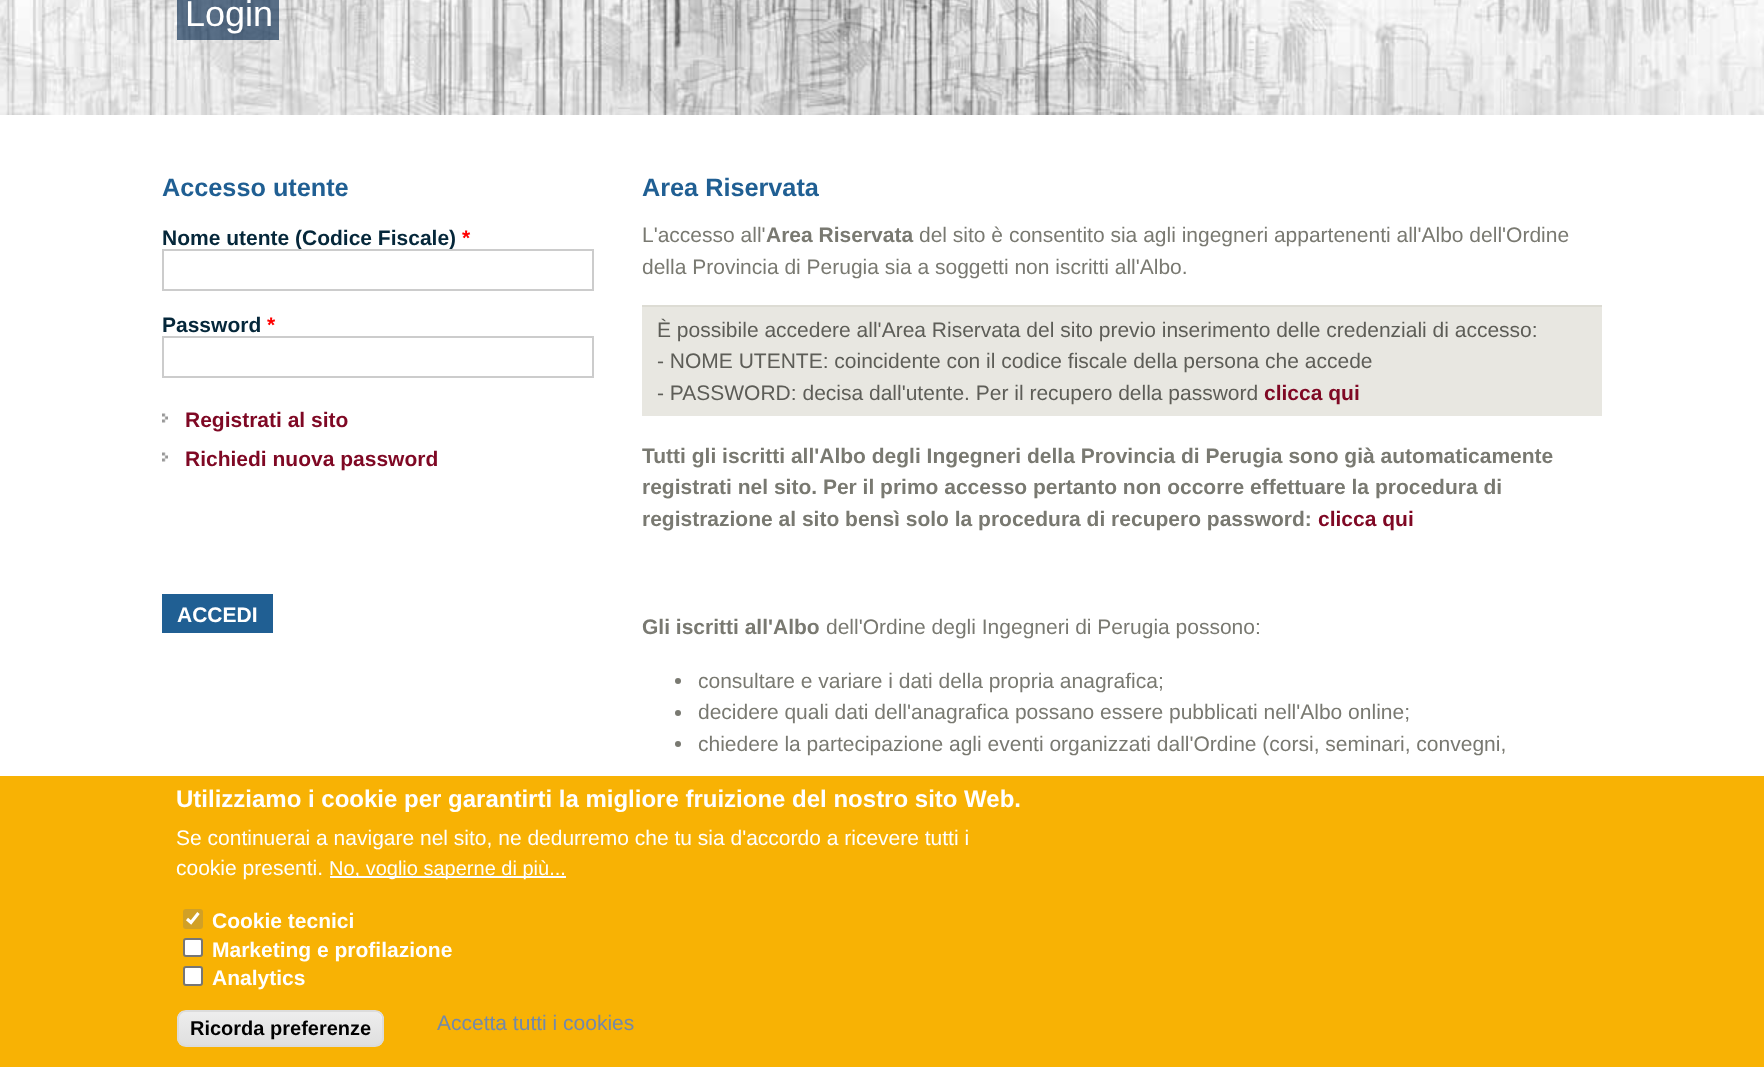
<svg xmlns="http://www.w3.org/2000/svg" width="1764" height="1067">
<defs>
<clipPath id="clip1"><rect x="177" y="1010" width="207" height="37" rx="9"/></clipPath>
<linearGradient id="g1" gradientUnits="userSpaceOnUse" x1="281" y1="1011" x2="281" y2="1046"><stop offset="0.05" stop-color="#ededed"/><stop offset="1" stop-color="#dfdfdf"/></linearGradient>
</defs>
<rect width="100%" height="100%" fill="#fff"/>
<image x="0" y="0" width="1764" height="115" href="media/1.png"/>
<rect x="177" width="102" height="40" fill="#03264ba3"/>
<text x="185" y="26" style="font-family:Liberation Sans;font-size:36px;fill:#fff">Login</text>
<text x="162" y="196" style="font-family:Liberation Sans;font-size:25.25px;font-weight:bold;fill:#205f93">Accesso utente</text>
<text x="162" y="245" style="font-family:Liberation Sans;font-size:21px;font-weight:bold;fill:#05273a">Nome utente (Codice Fiscale)</text>
<text x="462" y="245" style="font-family:Liberation Sans;font-size:21px;font-weight:bold;fill:#f00">*</text>
<rect x="163" y="250" width="430" height="40" fill="none" stroke="#ccc" stroke-width="2"/>
<text x="162" y="332" style="font-family:Liberation Sans;font-size:21px;font-weight:bold;fill:#05273a">Password</text>
<text x="267" y="332" style="font-family:Liberation Sans;font-size:21px;font-weight:bold;fill:#f00">*</text>
<rect x="163" y="337" width="430" height="40" fill="none" stroke="#ccc" stroke-width="2"/>
<image x="162" y="413" width="6" height="10" href="media/2.png"/>
<text x="185" y="427" style="font-family:Liberation Sans;font-size:21px;font-weight:bold;fill:#7f0824">Registrati al sito</text>
<image x="162" y="452" width="6" height="10" href="media/2.png"/>
<text x="185" y="466" style="font-family:Liberation Sans;font-size:21px;font-weight:bold;fill:#7f0824">Richiedi nuova password</text>
<rect x="162" y="594" width="111" height="39" fill="#205f93"/>
<text x="177" y="622" style="font-family:Liberation Sans;font-size:21px;font-weight:bold;fill:#fff">ACCEDI</text>
<text x="642" y="196" style="font-family:Liberation Sans;font-size:25.25px;font-weight:bold;fill:#205f93">Area Riservata</text>
<text x="642" y="242" style="font-family:Liberation Sans;font-size:21px;fill:#797971">L'accesso all'</text>
<text x="766" y="242" style="font-family:Liberation Sans;font-size:21px;font-weight:bold;fill:#797971">Area Riservata</text>
<text x="919" y="242" style="font-family:Liberation Sans;font-size:21px;fill:#797971">del sito è consentito sia agli ingegneri appartenenti all'Albo dell'Ordine</text>
<text x="642" y="274" style="font-family:Liberation Sans;font-size:21px;fill:#797971">della Provincia di Perugia sia a soggetti non iscritti all'Albo.</text>
<rect x="642" y="307" width="960" height="109" fill="#e8e7e1"/>
<rect x="642" y="305" width="960" height="2" fill="#dddcd4"/>
<text x="657" y="337" style="font-family:Liberation Sans;font-size:21px;fill:#5d5d57">È possibile accedere all'Area Riservata del sito previo inserimento delle credenziali di accesso:</text>
<text x="657" y="368" style="font-family:Liberation Sans;font-size:21px;fill:#5d5d57">- NOME UTENTE: coincidente con il codice fiscale della persona che accede</text>
<text x="657" y="400" style="font-family:Liberation Sans;font-size:21px;fill:#5d5d57">- PASSWORD: decisa dall'utente. Per il recupero della password</text>
<text x="1264" y="400" style="font-family:Liberation Sans;font-size:21px;font-weight:bold;fill:#7f0824">clicca qui</text>
<text x="642" y="463" style="font-family:Liberation Sans;font-size:21px;font-weight:bold;fill:#797971">Tutti gli iscritti all'Albo degli Ingegneri della Provincia di Perugia sono già automaticamente</text>
<text x="642" y="494" style="font-family:Liberation Sans;font-size:21px;font-weight:bold;fill:#797971">registrati nel sito. Per il primo accesso pertanto non occorre effettuare la procedura di</text>
<text x="642" y="526" style="font-family:Liberation Sans;font-size:21px;font-weight:bold;fill:#797971">registrazione al sito bensì solo la procedura di recupero password:</text>
<text x="1318" y="526" style="font-family:Liberation Sans;font-size:21px;font-weight:bold;fill:#7f0824">clicca qui</text>
<text x="642" y="634" style="font-family:Liberation Sans;font-size:21px;font-weight:bold;fill:#797971">Gli iscritti all'Albo</text>
<text x="826" y="634" style="font-family:Liberation Sans;font-size:21px;fill:#797971">dell'Ordine degli Ingegneri di Perugia possono:</text>
<circle cx="678" cy="681" r="3" fill="#797971"/>
<text x="698" y="688" style="font-family:Liberation Sans;font-size:21px;fill:#797971">consultare e variare i dati della propria anagrafica;</text>
<circle cx="678" cy="713" r="3" fill="#797971"/>
<text x="698" y="719" style="font-family:Liberation Sans;font-size:21px;fill:#797971">decidere quali dati dell'anagrafica possano essere pubblicati nell'Albo online;</text>
<circle cx="678" cy="744" r="3" fill="#797971"/>
<text x="698" y="751" style="font-family:Liberation Sans;font-size:21px;fill:#797971">chiedere la partecipazione agli eventi organizzati dall'Ordine (corsi, seminari, convegni,</text>
<rect y="776" width="1764" height="291" fill="#f8b204"/>
<text x="176" y="807" style="font-family:Liberation Sans;font-size:24px;font-weight:bold;fill:#fff">Utilizziamo i cookie per garantirti la migliore fruizione del nostro sito Web.</text>
<text x="176" y="845" style="font-family:Liberation Sans;font-size:21px;fill:#fff">Se continuerai a navigare nel sito, ne dedurremo che tu sia d'accordo a ricevere tutti i</text>
<text x="176" y="875" style="font-family:Liberation Sans;font-size:21px;fill:#fff">cookie presenti.</text>
<rect x="330" y="876" width="236" height="2" fill="#fff"/>
<text x="329" y="875" style="font-family:Liberation Sans;font-size:20px;fill:#fff">No, voglio saperne di più...</text>
<rect x="183" y="909" width="20" height="20" rx="3" fill="#d1a026"/>
<path d="M187 919l4 3.5l7.5-9.5" fill="none" stroke="#fff" stroke-width="3.1"/>
<text x="212" y="928" style="font-family:Liberation Sans;font-size:21px;font-weight:bold;fill:#fff">Cookie tecnici</text>
<rect x="184" y="939" width="18" height="17" rx="2" fill="#fff" stroke="#767676" stroke-width="2"/>
<text x="212" y="957" style="font-family:Liberation Sans;font-size:21px;font-weight:bold;fill:#fff">Marketing e profilazione</text>
<rect x="184" y="967" width="18" height="18" rx="2" fill="#fff" stroke="#767676" stroke-width="2"/>
<text x="212" y="985" style="font-family:Liberation Sans;font-size:21px;font-weight:bold;fill:#fff">Analytics</text>
<g clip-path="url(#clip1)">
<rect x="177" y="1011" width="207" height="35" fill="url(#g1)"/>
</g>
<path d="M186 1012h189c4 0 7 4 7 8v20v3c0-2 1-3 1-5v-19c0-4-4-8-8-8h-188c-3 0-5 2-7 4c2-2 4-3 6-3z" fill="#fff"/>
<rect x="178" y="1011" width="205" height="35" rx="8" fill="none" stroke="#dcdcdc" stroke-width="2"/>
<text x="190" y="1035" style="font-family:Liberation Sans;font-size:20px;font-weight:bold;fill:#000">Ricorda preferenze</text>
<text x="437" y="1030" style="font-family:Liberation Sans;font-size:21px;fill:#7289ab">Accetta tutti i cookies</text>
</svg>
